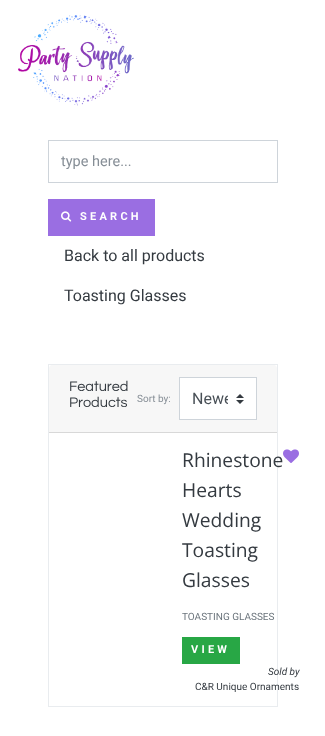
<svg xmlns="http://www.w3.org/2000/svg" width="325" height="736">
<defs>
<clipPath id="clip1"><rect x="192" y="387" width="36" height="24"/></clipPath>
</defs>
<rect width="100%" height="100%" fill="#fff"/>
<image x="18" y="15" width="116" height="91" href="media/1.png"/>
<rect x="48.5" y="140.5" width="229" height="42" fill="none" stroke="#ced4da"/>
<text x="61" y="166" style="font-family:Roboto;font-size:14.5px;fill:#868e96">type here...</text>
<rect x="48" y="199" width="107" height="37" fill="#9a6ee2"/>
<image x="61" y="211" width="11" height="11" href="media/2.png"/>
<text x="80" y="220" style="font-family:Roboto;font-size:11px;font-weight:bold;letter-spacing:3.25px;fill:#fff">SEARCH</text>
<text x="64" y="261" style="font-family:Roboto;font-size:16px;fill:#343a40">Back to all products</text>
<text x="64" y="301" style="font-family:Roboto;font-size:16px;fill:#343a40">Toasting Glasses</text>
<rect x="48.5" y="364.5" width="229" height="342" fill="none" stroke="#e9ecef"/>
<path d="M52 365h222c1.5 0 3 1.5 3 3v65h-228v-65c0-1.5 1.5-3 3-3z" fill="#f7f7f7"/>
<rect x="49" y="432" width="228" height="1" fill="#d8d8d8"/>
<text x="69" y="391" style="font-family:Questrial;font-size:14.5px;fill:#343a40">Featured</text>
<text x="69" y="407" style="font-family:Questrial;font-size:14.5px;fill:#343a40">Products</text>
<text x="137" y="402" style="font-family:Roboto;font-size:10px;fill:#868e96">Sort by:</text>
<rect x="180" y="378" width="76" height="41" fill="#fff"/>
<image x="236" y="394" width="8" height="10" href="media/3.png"/>
<rect x="179.5" y="377.5" width="77" height="42" fill="none" stroke="#ced4da"/>
<g clip-path="url(#clip1)">
<text x="192" y="404" style="font-family:Roboto;font-size:16px;fill:#495057">Newe</text>
</g>
<text x="182" y="467" style="font-family:Open Sans;font-size:19.25px;fill:#343a40">Rhinestone</text>
<text x="182" y="497" style="font-family:Open Sans;font-size:19.25px;fill:#343a40">Hearts</text>
<text x="182" y="527" style="font-family:Open Sans;font-size:19.25px;fill:#343a40">Wedding</text>
<text x="182" y="557" style="font-family:Open Sans;font-size:19.25px;fill:#343a40">Toasting</text>
<text x="182" y="587" style="font-family:Open Sans;font-size:19.25px;fill:#343a40">Glasses</text>
<image x="283" y="449" width="16" height="14" href="media/4.png"/>
<text x="182" y="620" style="font-family:Roboto;font-size:10px;fill:#6c757d">TOASTING GLASSES</text>
<rect x="182" y="637" width="58" height="27" fill="#28a745"/>
<text x="191" y="653" style="font-family:Roboto;font-size:11px;font-weight:bold;letter-spacing:3.25px;fill:#fff">VIEW</text>
<text x="268" y="675" style="font-family:Roboto;font-size:10px;font-style:italic;fill:#343a40">Sold by</text>
<text x="195" y="690" style="font-family:Roboto;font-size:10px;fill:#343a40">C&amp;R Unique Ornaments</text>
</svg>
